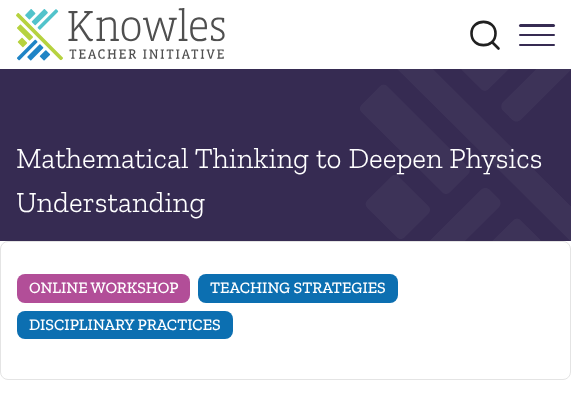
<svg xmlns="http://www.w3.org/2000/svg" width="571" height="405">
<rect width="100%" height="100%" fill="#fff"/>
<image x="16" y="8" width="209" height="53" href="media/1.png"/>
<path d="M498.5 48.5l-6.5-6.5m3.5-8.5c0 15.5-24 15.5-24 0c0-15.5 24-15.5 24 0z" fill="none" stroke="#202020" stroke-width="2.6" stroke-linecap="round" stroke-linejoin="round"/>
<rect x="519" y="24" width="36" height="3" rx="1.5" fill="#362b52"/>
<rect x="519" y="34" width="36" height="2" rx="1" fill="#362b52"/>
<rect x="519" y="44" width="36" height="2" rx="1" fill="#362b52"/>
<rect y="69" width="571" height="172" fill="#362b52"/>
<text x="16" y="168" style="font-family:Zilla Slab;font-size:29.25px;font-weight:300;fill:#fff">Mathematical Thinking to Deepen Physics</text>
<image x="360" y="69" width="211" height="172" href="media/2.png"/>
<text x="16" y="212" style="font-family:Zilla Slab;font-size:29.25px;font-weight:300;fill:#fff">Understanding</text>
<rect x="0.5" y="241.5" width="570" height="138" rx="7.5" fill="none" stroke="#e4e4e4"/>
<rect x="17" y="274" width="173" height="29" rx="8" fill="#b24e98"/>
<text x="29" y="293" style="font-family:Zilla Slab;font-size:16px;font-weight:500;fill:#fff">ONLINE WORKSHOP</text>
<rect x="198" y="274" width="200" height="29" rx="8" fill="#0c6fb1"/>
<text x="210" y="293" style="font-family:Zilla Slab;font-size:16px;font-weight:500;fill:#fff">TEACHING STRATEGIES</text>
<rect x="17" y="311" width="216" height="28" rx="8" fill="#0c6fb1"/>
<text x="29" y="330" style="font-family:Zilla Slab;font-size:16px;font-weight:500;fill:#fff">DISCIPLINARY PRACTICES</text>
</svg>
